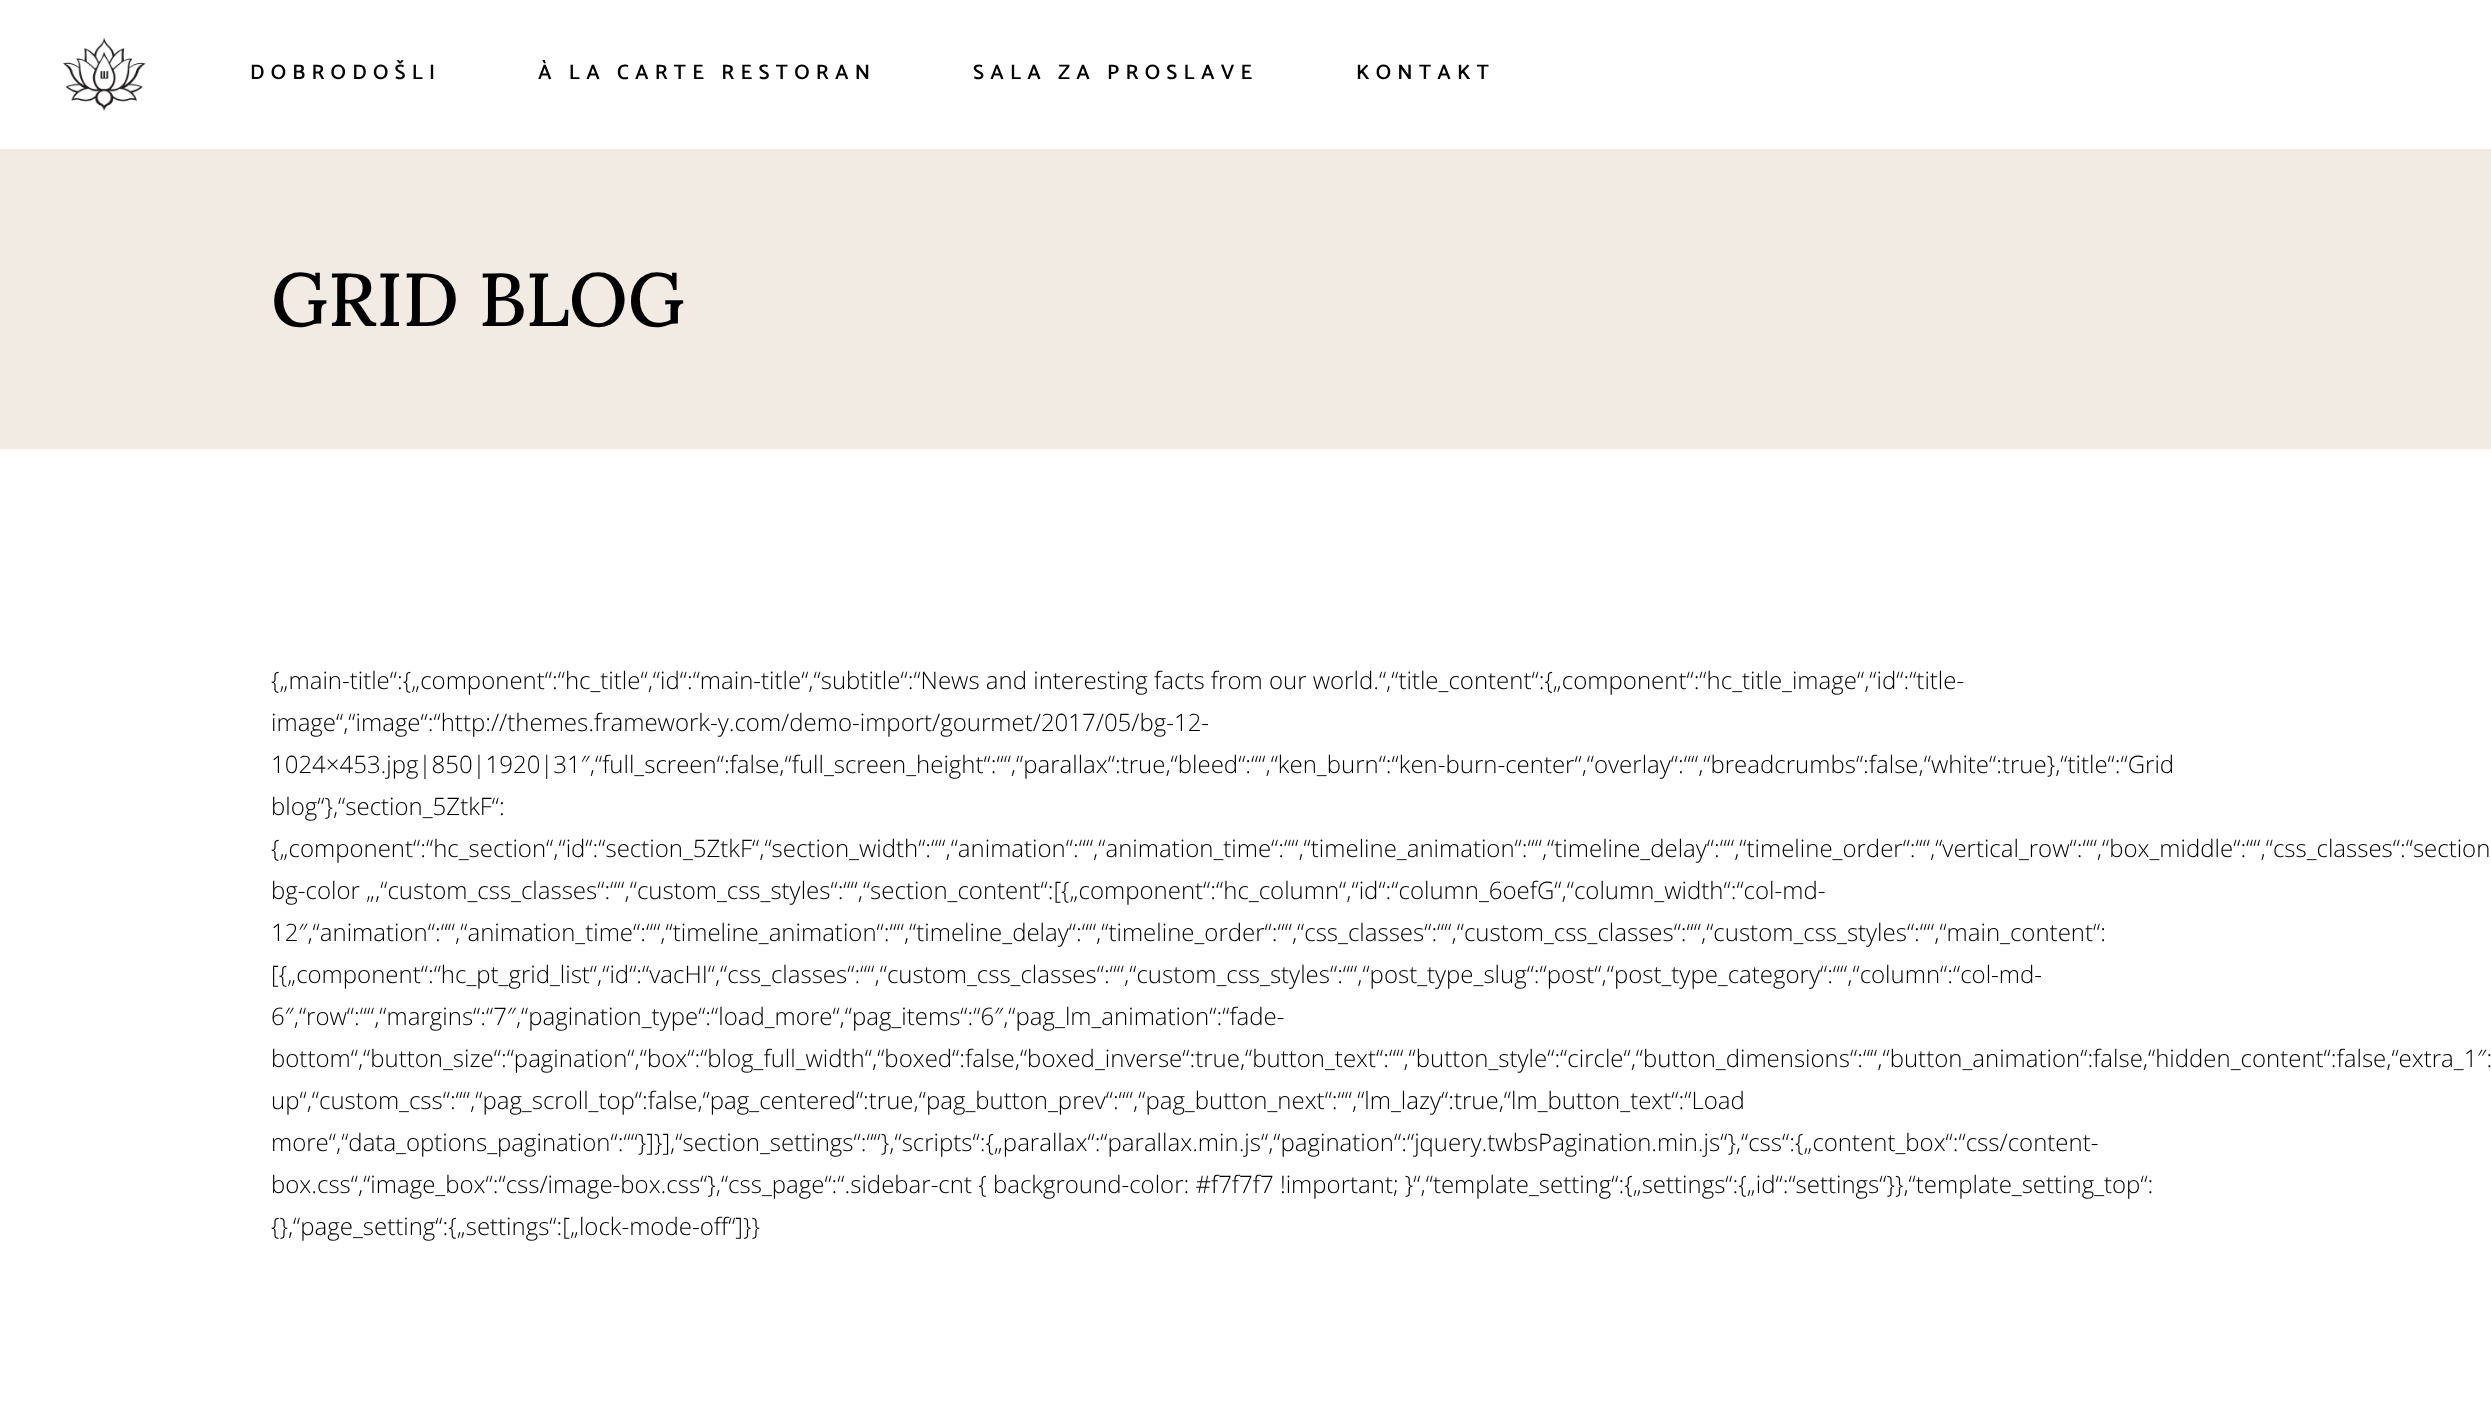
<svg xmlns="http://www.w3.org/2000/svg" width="2491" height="1402">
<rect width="100%" height="100%" fill="#fff"/>
<image x="63" y="37" width="83" height="74" href="media/1.png"/>
<text x="250" y="79" style="font-family:Catamaran;font-size:21px;font-weight:600;letter-spacing:6.25px;fill:#000">DOBRODOŠLI</text>
<text x="538" y="79" style="font-family:Catamaran;font-size:21px;font-weight:600;letter-spacing:6.25px;fill:#000">À LA CARTE RESTORAN</text>
<text x="973" y="79" style="font-family:Catamaran;font-size:21px;font-weight:600;letter-spacing:6.25px;fill:#000">SALA ZA PROSLAVE</text>
<text x="1356" y="79" style="font-family:Catamaran;font-size:21px;font-weight:600;letter-spacing:6.25px;fill:#000">KONTAKT</text>
<rect y="149" width="2491" height="300" fill="#f1ebe4"/>
<text x="271" y="326" style="font-family:Lora;font-size:75px;font-weight:500;fill:#000">GRID BLOG</text>
<text x="271" y="689" style="font-family:Open Sans;font-size:24px;font-weight:300;fill:#000">{„main-title“:{„component“:“hc_title“,“id“:“main-title“,“subtitle“:“News and interesting facts from our world.“,“title_content“:{„component“:“hc_title_image“,“id“:“title-</text>
<text x="271" y="731" style="font-family:Open Sans;font-size:24px;font-weight:300;fill:#000">image“,“image“:“http://themes.framework-y.com/demo-import/gourmet/2017/05/bg-12-</text>
<text x="271" y="773" style="font-family:Open Sans;font-size:24px;font-weight:300;fill:#000">1024×453.jpg|850|1920|31″,“full_screen“:false,“full_screen_height“:““,“parallax“:true,“bleed“:““,“ken_burn“:“ken-burn-center“,“overlay“:““,“breadcrumbs“:false,“white“:true},“title“:“Grid</text>
<text x="271" y="815" style="font-family:Open Sans;font-size:24px;font-weight:300;fill:#000">blog“},“section_5ZtkF“:</text>
<text x="271" y="857" style="font-family:Open Sans;font-size:24px;font-weight:300;fill:#000">{„component“:“hc_section“,“id“:“section_5ZtkF“,“section_width“:““,“animation“:““,“animation_time“:““,“timeline_animation“:““,“timeline_delay“:““,“timeline_order“:““,“vertical_row“:““,“box_middle“:““,“css_classes“:“section</text>
<text x="271" y="899" style="font-family:Open Sans;font-size:24px;font-weight:300;fill:#000">bg-color „,“custom_css_classes“:““,“custom_css_styles“:““,“section_content“:[{„component“:“hc_column“,“id“:“column_6oefG“,“column_width“:“col-md-</text>
<text x="271" y="941" style="font-family:Open Sans;font-size:24px;font-weight:300;fill:#000">12″,“animation“:““,“animation_time“:““,“timeline_animation“:““,“timeline_delay“:““,“timeline_order“:““,“css_classes“:““,“custom_css_classes“:““,“custom_css_styles“:““,“main_content“:</text>
<text x="271" y="983" style="font-family:Open Sans;font-size:24px;font-weight:300;fill:#000">[{„component“:“hc_pt_grid_list“,“id“:“vacHI“,“css_classes“:““,“custom_css_classes“:““,“custom_css_styles“:““,“post_type_slug“:“post“,“post_type_category“:““,“column“:“col-md-</text>
<text x="271" y="1025" style="font-family:Open Sans;font-size:24px;font-weight:300;fill:#000">6″,“row“:““,“margins“:“7″,“pagination_type“:“load_more“,“pag_items“:“6″,“pag_lm_animation“:“fade-</text>
<text x="271" y="1067" style="font-family:Open Sans;font-size:24px;font-weight:300;fill:#000">bottom“,“button_size“:“pagination“,“box“:“blog_full_width“,“boxed“:false,“boxed_inverse“:true,“button_text“:““,“button_style“:“circle“,“button_dimensions“:““,“button_animation“:false,“hidden_content“:false,“extra_1″:</text>
<text x="271" y="1109" style="font-family:Open Sans;font-size:24px;font-weight:300;fill:#000">up“,“custom_css“:““,“pag_scroll_top“:false,“pag_centered“:true,“pag_button_prev“:““,“pag_button_next“:““,“lm_lazy“:true,“lm_button_text“:“Load</text>
<text x="271" y="1151" style="font-family:Open Sans;font-size:24px;font-weight:300;fill:#000">more“,“data_options_pagination“:““}]}],“section_settings“:““},“scripts“:{„parallax“:“parallax.min.js“,“pagination“:“jquery.twbsPagination.min.js“},“css“:{„content_box“:“css/content-</text>
<text x="271" y="1193" style="font-family:Open Sans;font-size:24px;font-weight:300;fill:#000">box.css“,“image_box“:“css/image-box.css“},“css_page“:“.sidebar-cnt { background-color: #f7f7f7 !important; }“,“template_setting“:{„settings“:{„id“:“settings“}},“template_setting_top“:</text>
<text x="271" y="1235" style="font-family:Open Sans;font-size:24px;font-weight:300;fill:#000">{},“page_setting“:{„settings“:[„lock-mode-off“]}}</text>
</svg>
